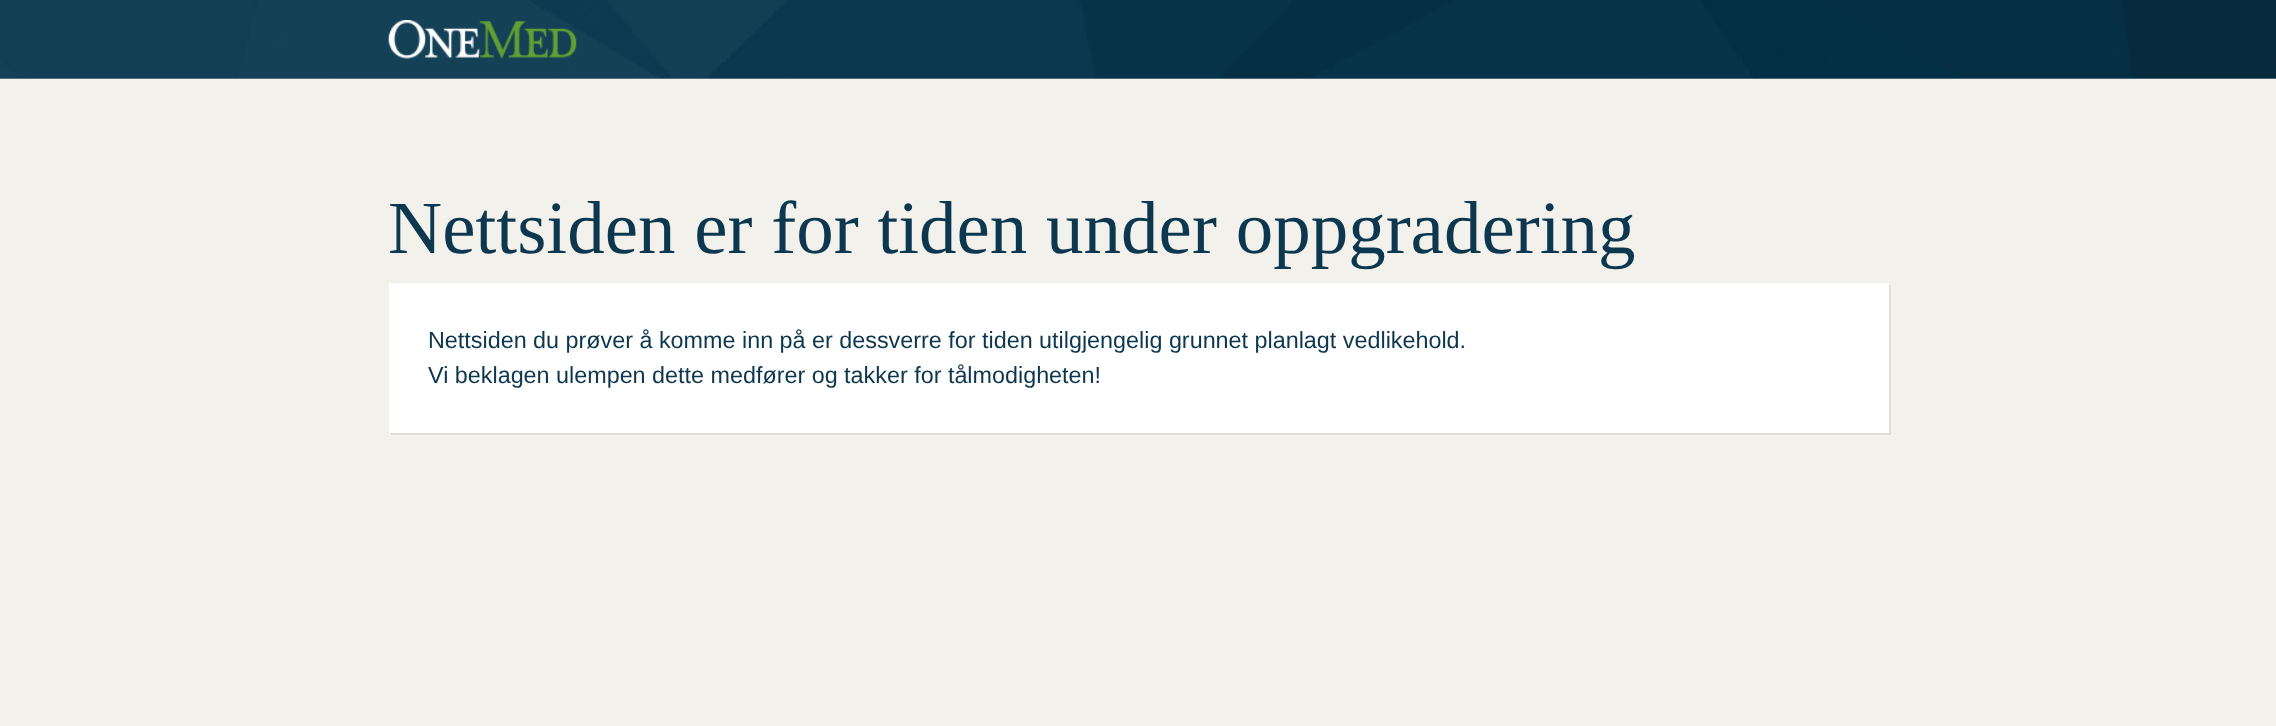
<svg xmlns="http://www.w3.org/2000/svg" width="2276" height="726">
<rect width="100%" height="100%" fill="#f2f1ec"/>
<image x="0" y="0" width="2276" height="79" href="media/1.png"/>
<image x="388" y="20" width="189" height="39" href="media/2.png"/>
<text x="388" y="253" style="font-family:Liberation Serif;font-size:75px;fill:#0d374e">Nettsiden er for tiden under oppgradering</text>
<path d="M391 432v3h1500v-150h-2v147z" fill="#dfded9"/>
<rect x="389" y="283" width="1500" height="150" fill="#fff"/>
<text x="428" y="348" style="font-family:Liberation Sans;font-size:23.35px;fill:#0d374e">Nettsiden du prøver å komme inn på er dessverre for tiden utilgjengelig grunnet planlagt vedlikehold.</text>
<text x="428" y="383" style="font-family:Liberation Sans;font-size:23.35px;fill:#0d374e">Vi beklagen ulempen dette medfører og takker for tålmodigheten!</text>
</svg>
